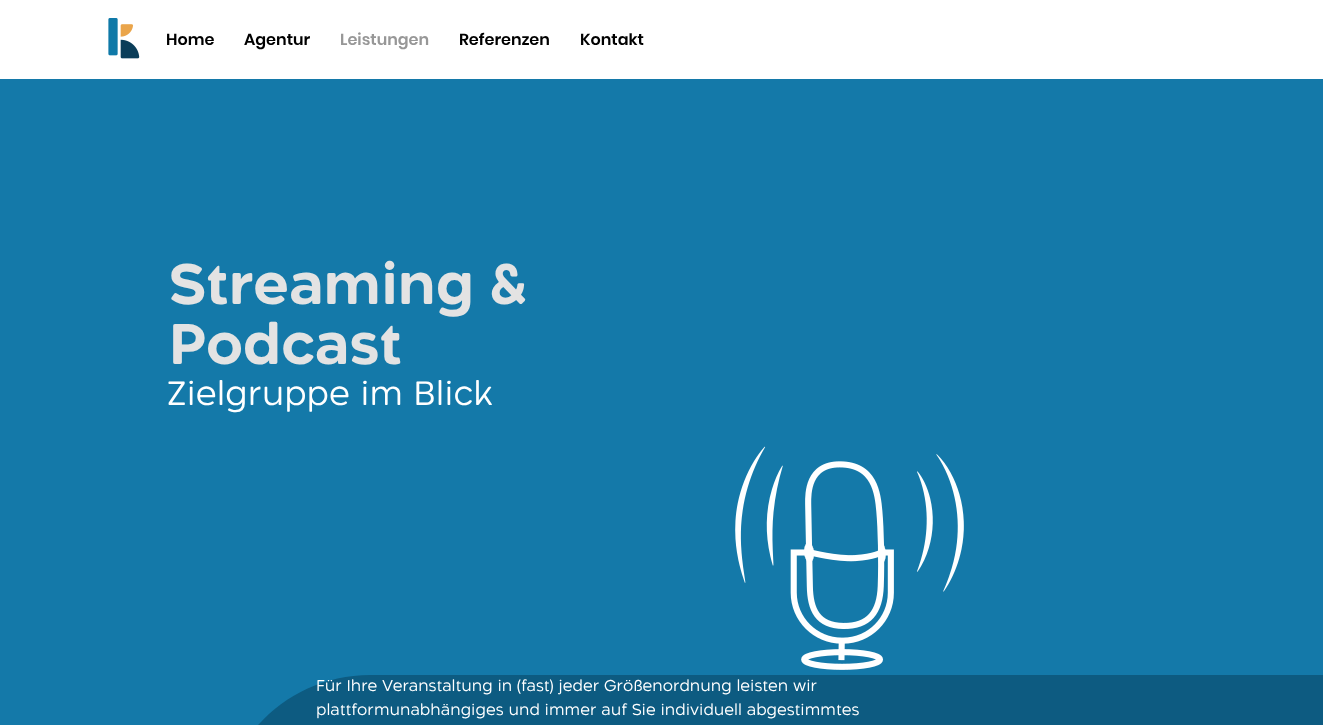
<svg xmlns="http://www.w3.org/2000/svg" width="1323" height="725">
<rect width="100%" height="100%" fill="#1479a9"/>
<rect width="1323" height="79" fill="#fff"/>
<image x="108" y="18" width="32" height="41" href="media/1.png"/>
<text x="166" y="45" style="font-family:Poppins;font-size:16px;font-weight:600;fill:#000">Home</text>
<text x="244" y="45" style="font-family:Poppins;font-size:16px;font-weight:600;fill:#000">Agentur</text>
<text x="340" y="45" style="font-family:Poppins;font-size:16px;font-weight:600;fill:#979797">Leistungen</text>
<text x="459" y="45" style="font-family:Poppins;font-size:16px;font-weight:600;fill:#000">Referenzen</text>
<text x="580" y="45" style="font-family:Poppins;font-size:16px;font-weight:600;fill:#000">Kontakt</text>
<text x="169" y="304" style="font-family:'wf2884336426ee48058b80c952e';font-size:54.5px;font-weight:bold;fill:#e3e3e3">Streaming &amp;</text>
<text x="169" y="364" style="font-family:'wf2884336426ee48058b80c952e';font-size:54.5px;font-weight:bold;fill:#e3e3e3">Podcast</text>
<text x="167" y="405" style="font-family:'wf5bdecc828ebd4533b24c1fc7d';font-size:32.25px;font-weight:300;fill:#fff">Zielgruppe im Blick</text>
<image x="735" y="446" width="229" height="224" href="media/2.png"/>
<path d="M370 675h953v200h-1103v-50c0-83 67-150 150-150z" fill="#0d5b81"/>
<text x="316" y="691" style="font-family:'wf5bdecc828ebd4533b24c1fc7d';font-size:15px;font-weight:300;fill:#fff">Für Ihre Veranstaltung in (fast) jeder Größenordnung leisten wir</text>
<text x="316" y="715" style="font-family:'wf5bdecc828ebd4533b24c1fc7d';font-size:15px;font-weight:300;fill:#fff">plattformunabhängiges und immer auf Sie individuell abgestimmtes</text>
</svg>
